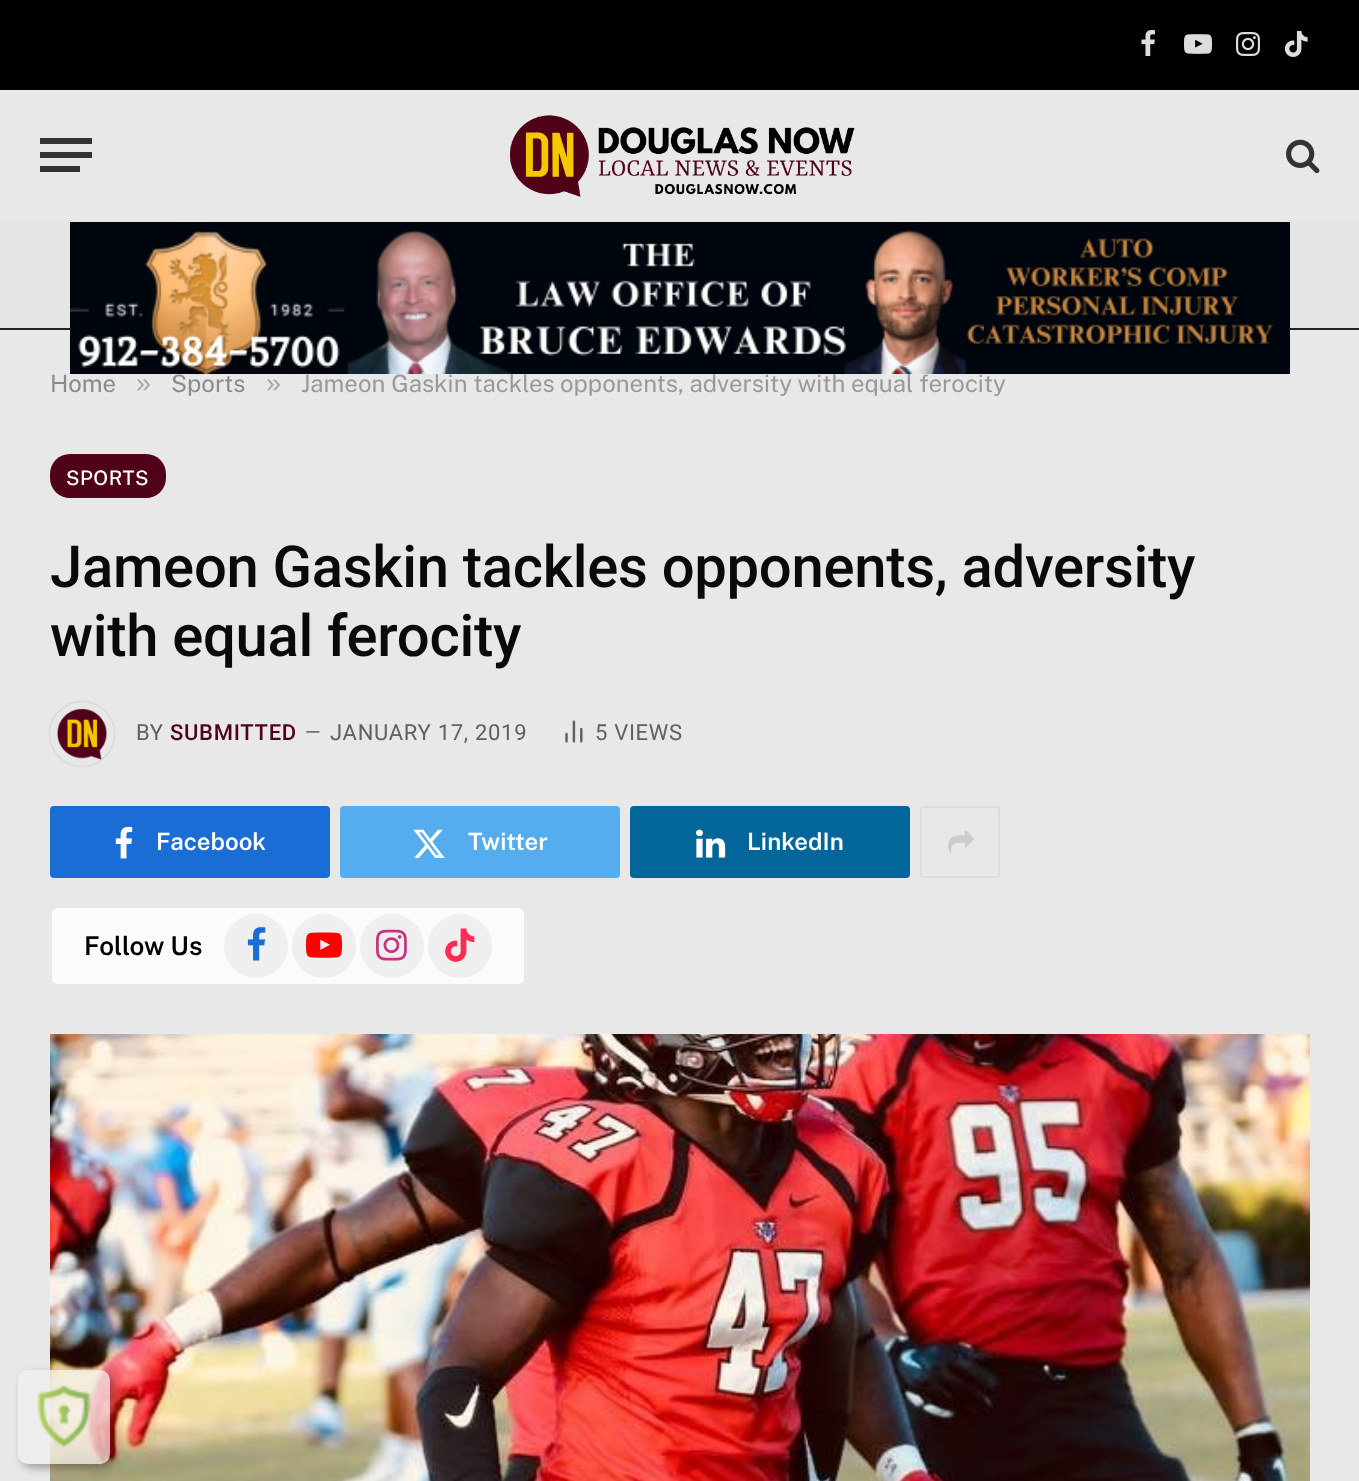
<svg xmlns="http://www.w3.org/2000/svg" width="1359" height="1481">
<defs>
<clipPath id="clip1"><path d="M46 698h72v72h-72zm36 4c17.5 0 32 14.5 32 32c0 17.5-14.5 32-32 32c-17.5 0-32-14.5-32-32c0-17.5 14.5-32 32-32z" clip-rule="evenodd"/></clipPath>
<clipPath id="clip2"><path d="M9 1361h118v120h-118zm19 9h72c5.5 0 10 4.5 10 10v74c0 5.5-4.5 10-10 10h-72c-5.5 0-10-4.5-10-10v-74c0-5.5 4.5-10 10-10z" clip-rule="evenodd"/></clipPath>
</defs>
<rect width="100%" height="100%" fill="#e8e8e8"/>
<rect width="1359" height="90" fill="#000"/>
<image x="1141" y="30" width="14" height="26" href="media/1.png"/>
<image x="1184" y="34" width="28" height="20" href="media/2.png"/>
<image x="1236" y="32" width="24" height="24" href="media/3.png"/>
<image x="1284" y="31" width="24" height="26" href="media/4.png"/>
<rect x="40" y="166" width="40" height="6" fill="#333"/>
<rect x="40" y="138" width="52" height="6" fill="#333"/>
<rect x="40" y="152" width="52" height="6" fill="#333"/>
<image x="510" y="115" width="345" height="82" href="media/5.png"/>
<image x="1286" y="139" width="34" height="35" href="media/6.png"/>
<rect y="220" width="1359" height="108" fill="#e5e5e5"/>
<rect y="328" width="1359" height="2" fill="#222"/>
<image x="70" y="222" width="1220" height="152" href="media/7.png"/>
<text x="50" y="392" style="font-family:Public Sans;font-size:24px;fill:#8a8a8a">Home</text>
<text x="136" y="392" style="font-family:Liberation Sans;font-size:27px;fill:#a9a9a9">»</text>
<text x="171" y="392" style="font-family:Public Sans;font-size:24px;fill:#8a8a8a">Sports</text>
<text x="266" y="392" style="font-family:Liberation Sans;font-size:27px;fill:#a9a9a9">»</text>
<text x="301" y="392" style="font-family:Public Sans;font-size:24px;fill:#999">Jameon Gaskin tackles opponents, adversity with equal ferocity</text>
<rect x="50" y="454" width="116" height="44" rx="20" fill="#500218"/>
<text x="66" y="485" style="font-family:Public Sans;font-size:20px;font-weight:500;letter-spacing:0.5px;fill:#fff">SPORTS</text>
<text x="50" y="587" style="font-family:Roboto;font-size:58px;font-weight:500;letter-spacing:-0.3px;fill:#0a0a0a">Jameon Gaskin tackles opponents, adversity</text>
<text x="50" y="656" style="font-family:Roboto;font-size:58px;font-weight:500;letter-spacing:-0.3px;fill:#0a0a0a">with equal ferocity</text>
<g clip-path="url(#clip1)">
<rect x="50" y="702" width="64" height="64" rx="32" fill="#00000033" filter="blur(1px)"/>
</g>
<image x="57" y="708" width="51" height="52" href="media/8.png"/>
<text x="136" y="740" style="font-family:Roboto;font-size:22px;letter-spacing:0.7px;fill:#606060">BY</text>
<text x="170" y="740" style="font-family:Roboto;font-size:22px;font-weight:500;letter-spacing:0.7px;fill:#500218">SUBMITTED</text>
<text x="305" y="739" style="font-family:Roboto;font-size:20px;letter-spacing:0.5px;fill:#606060">—</text>
<text x="330" y="740" style="font-family:Roboto;font-size:22px;letter-spacing:0.7px;fill:#606060">JANUARY 17, 2019</text>
<image x="565" y="720" width="18" height="23" href="media/9.png"/>
<text x="595" y="740" style="font-family:Roboto;font-size:22px;letter-spacing:0.7px;fill:#606060">5 VIEWS</text>
<rect x="50" y="806" width="280" height="72" rx="4" fill="#1a6dd4"/>
<image x="115" y="826" width="18" height="33" href="media/10.png"/>
<text x="156" y="850" style="font-family:Public Sans;font-size:24px;font-weight:600;fill:#fff">Facebook</text>
<rect x="340" y="806" width="280" height="72" rx="4" fill="#55acef"/>
<image x="413" y="829" width="32" height="29" href="media/11.png"/>
<text x="468" y="850" style="font-family:Public Sans;font-size:24px;font-weight:600;fill:#fff">Twitter</text>
<rect x="630" y="806" width="280" height="72" rx="4" fill="#02669a"/>
<image x="696" y="829" width="30" height="29" href="media/12.png"/>
<text x="747" y="850" style="font-family:Public Sans;font-size:24px;font-weight:600;fill:#fff">LinkedIn</text>
<rect x="921" y="807" width="78" height="70" rx="3" fill="none" stroke="#ddd" stroke-width="2"/>
<image x="948" y="830" width="26" height="24" href="media/13.png"/>
<rect x="51" y="907" width="474" height="78" rx="7" fill="#fbfbfb" stroke="#e8e8e8" stroke-width="2"/>
<text x="84" y="955" style="font-family:Public Sans;font-size:26px;font-weight:600;fill:#000">Follow Us</text>
<circle cx="256" cy="946" r="32" fill="#efefef"/>
<image x="247" y="927" width="19" height="34" href="media/14.png"/>
<circle cx="324" cy="946" r="32" fill="#efefef"/>
<image x="306" y="932" width="36" height="26" href="media/15.png"/>
<circle cx="392" cy="946" r="32" fill="#efefef"/>
<image x="376" y="929" width="31" height="32" href="media/16.png"/>
<circle cx="460" cy="946" r="32" fill="#efefef"/>
<image x="445" y="928" width="30" height="34" href="media/17.png"/>
<image x="50" y="1034" width="1260" height="447" href="media/18.png"/>
<g clip-path="url(#clip2)">
<rect x="22" y="1374" width="92" height="94" rx="10" fill="#00000054" filter="blur(4px)"/>
</g>
<rect x="18" y="1370" width="92" height="94" rx="10" fill="#f1f1f1b0"/>
<image x="37" y="1385" width="54" height="62" href="media/19.png"/>
</svg>
